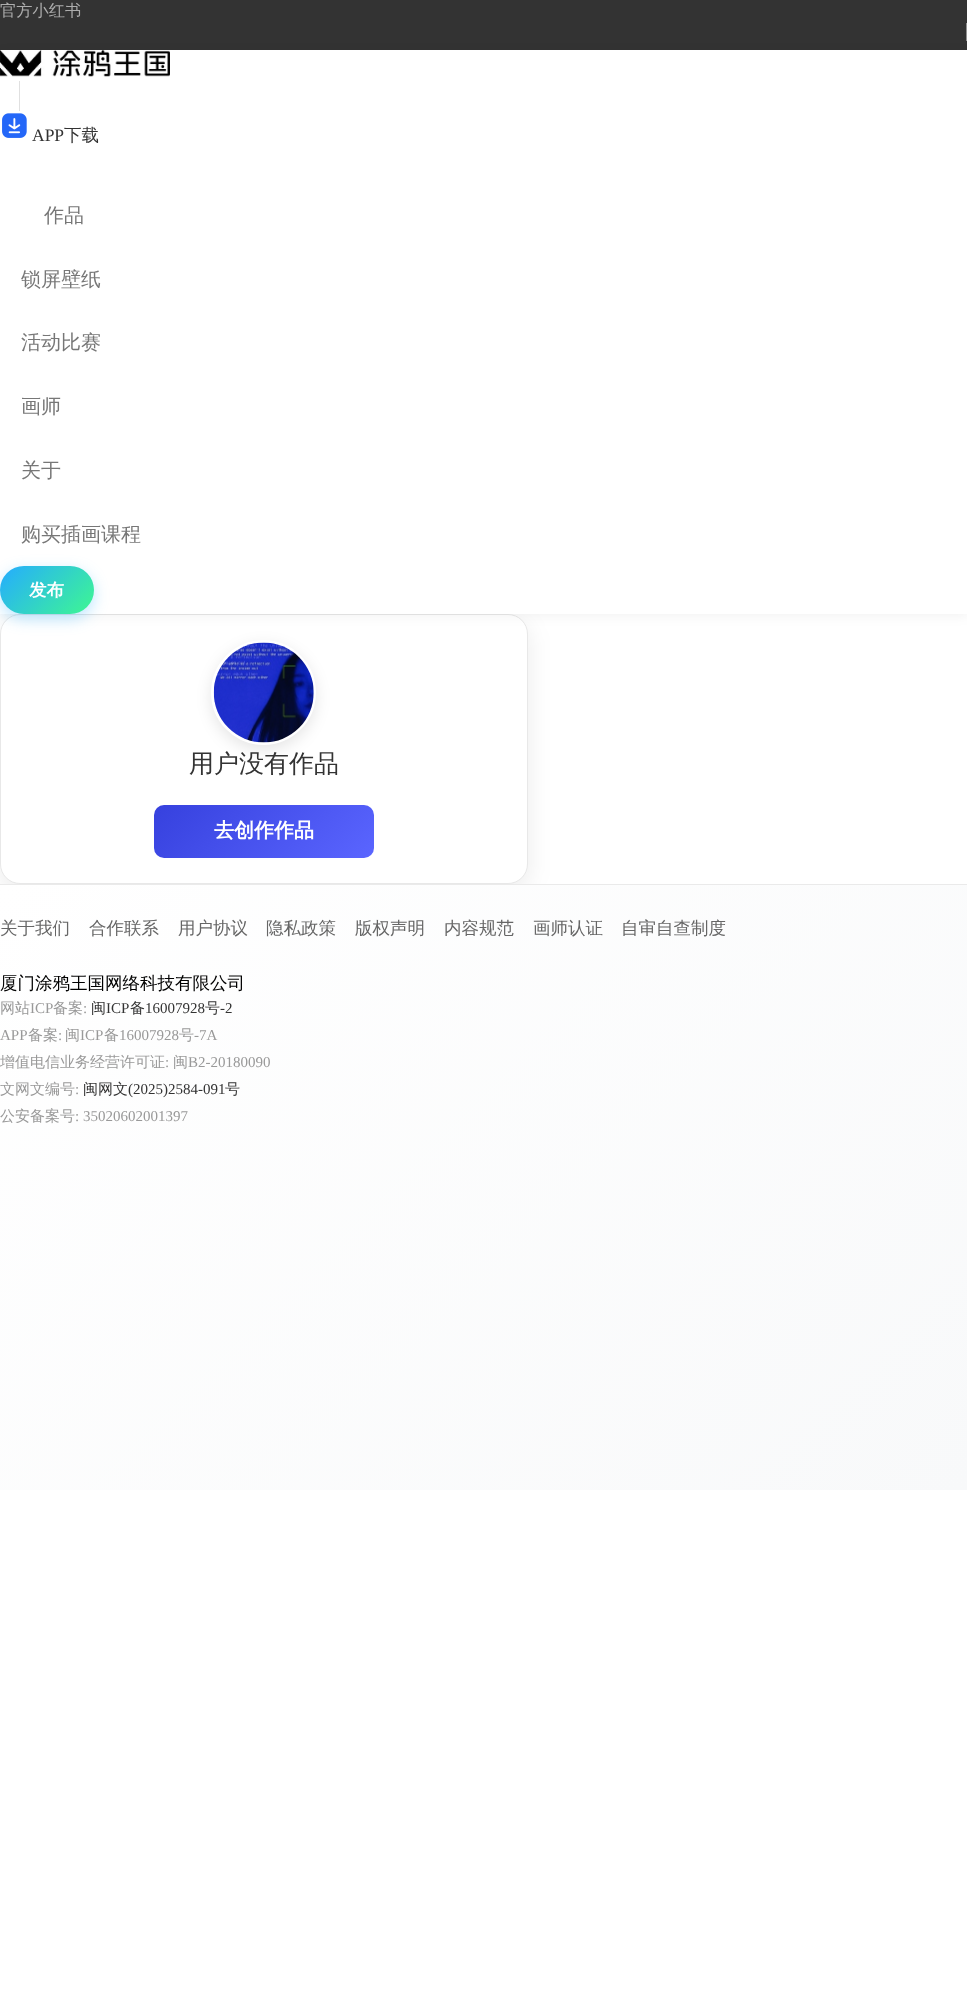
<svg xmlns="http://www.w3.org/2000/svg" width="967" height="1995">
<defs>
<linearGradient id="g1" gradientUnits="userSpaceOnUse" x1="12" y1="555" x2="82" y2="625"><stop offset="0" stop-color="#25acff"/><stop offset="1" stop-color="#3ef792"/></linearGradient>
<linearGradient id="g2" gradientUnits="userSpaceOnUse" x1="196" y1="763" x2="332" y2="899"><stop offset="0" stop-color="#3641de"/><stop offset="1" stop-color="#5a65ff"/></linearGradient>
<linearGradient id="g3" gradientUnits="userSpaceOnUse" x1="91" y1="794" x2="877" y2="1581"><stop offset="0" stop-color="#fff"/><stop offset="1" stop-color="#f8f9fa"/></linearGradient>
</defs>
<rect width="100%" height="100%" fill="#fff"/>
<rect width="967" height="50" fill="#333"/>
<text x="0" y="16" style="font-family:WenQuanYi Zen Hei;font-size:16.25px;font-weight:500;fill:#adadad">官方小红书</text>
<rect x="966" y="23" width="1" height="18" fill="#929292"/>
<rect y="621" width="528" height="270" rx="20" fill="#00000014" filter="blur(12.5px)"/>
<rect x="0.5" y="614.5" width="527" height="269" rx="19.5" fill="#fff" stroke="#e8e8e8"/>
<rect y="53" width="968" height="563" fill="#0000000d" filter="blur(6px)"/>
<rect y="50" width="967" height="564" fill="#fff"/>
<image x="0" y="50" width="170" height="27" href="media/1.png"/>
<rect x="19" y="81" width="1" height="30" fill="#e0e0e0"/>
<image x="2" y="113" width="25" height="25" href="media/2.png"/>
<text x="32" y="141" style="font-family:Liberation Serif;font-size:17.5px;fill:#333">APP</text>
<text x="64" y="141" style="font-family:WenQuanYi Zen Hei;font-size:17.5px;font-weight:500;fill:#333">下载</text>
<text x="44" y="222" style="font-family:WenQuanYi Zen Hei;font-size:20px;font-weight:500;fill:#777">作品</text>
<text x="21" y="286" style="font-family:WenQuanYi Zen Hei;font-size:20px;font-weight:500;fill:#777">锁屏壁纸</text>
<text x="21" y="349" style="font-family:WenQuanYi Zen Hei;font-size:20px;font-weight:500;fill:#777">活动比赛</text>
<text x="21" y="413" style="font-family:WenQuanYi Zen Hei;font-size:20px;font-weight:500;fill:#777">画师</text>
<text x="21" y="477" style="font-family:WenQuanYi Zen Hei;font-size:20px;font-weight:500;fill:#777">关于</text>
<text x="21" y="541" style="font-family:WenQuanYi Zen Hei;font-size:20px;font-weight:500;fill:#777">购买插画课程</text>
<rect y="571" width="94" height="48" rx="24" fill="#25acff4d" filter="blur(7.5px)"/>
<rect y="566" width="94" height="48" rx="24" fill="url(#g1)"/>
<text x="29" y="596" style="font-family:WenQuanYi Zen Hei;font-size:17.5px;font-weight:bold;fill:#fff">发布</text>
<rect x="211" y="645" width="105" height="105" rx="52.5" fill="#0000001a" filter="blur(7.5px)"/>
<circle cx="263.5" cy="692.5" r="51" fill="none" stroke="#fff" stroke-width="3"/>
<image x="213" y="642" width="101" height="101" href="media/3.png"/>
<text x="189" y="772" style="font-family:WenQuanYi Zen Hei;font-size:25px;font-weight:500;fill:#333">用户没有作品</text>
<rect x="154" y="805" width="220" height="53" rx="10" fill="url(#g2)"/>
<text x="214" y="837" style="font-family:WenQuanYi Zen Hei;font-size:20px;font-weight:bold;fill:#fff">去创作作品</text>
<rect y="885" width="967" height="605" fill="url(#g3)"/>
<rect y="884" width="967" height="1" fill="#eaeaea"/>
<text x="0" y="934" style="font-family:WenQuanYi Zen Hei;font-size:17.5px;font-weight:500;fill:#666">关于我们</text>
<text x="89" y="934" style="font-family:WenQuanYi Zen Hei;font-size:17.5px;font-weight:500;fill:#666">合作联系</text>
<text x="178" y="934" style="font-family:WenQuanYi Zen Hei;font-size:17.5px;font-weight:500;fill:#666">用户协议</text>
<text x="266" y="934" style="font-family:WenQuanYi Zen Hei;font-size:17.5px;font-weight:500;fill:#666">隐私政策</text>
<text x="355" y="934" style="font-family:WenQuanYi Zen Hei;font-size:17.5px;font-weight:500;fill:#666">版权声明</text>
<text x="444" y="934" style="font-family:WenQuanYi Zen Hei;font-size:17.5px;font-weight:500;fill:#666">内容规范</text>
<text x="533" y="934" style="font-family:WenQuanYi Zen Hei;font-size:17.5px;font-weight:500;fill:#666">画师认证</text>
<text x="621" y="934" style="font-family:WenQuanYi Zen Hei;font-size:17.5px;font-weight:500;fill:#666">自审自查制度</text>
<text x="0" y="989" style="font-family:WenQuanYi Zen Hei;font-size:17.5px;font-weight:500;fill:#000">厦门涂鸦王国网络科技有限公司</text>
<text x="0" y="1013" style="font-family:WenQuanYi Zen Hei;font-size:15px;font-weight:500;fill:#999">网站</text>
<text x="30" y="1013" style="font-family:Liberation Serif;font-size:15px;fill:#999">ICP</text>
<text x="53" y="1013" style="font-family:WenQuanYi Zen Hei;font-size:15px;font-weight:500;fill:#999">备案</text>
<text x="83" y="1013" style="font-family:Liberation Serif;font-size:15px;fill:#999">:</text>
<text x="91" y="1013" style="font-family:WenQuanYi Zen Hei;font-size:15px;font-weight:500;fill:#333">闽</text>
<text x="106" y="1013" style="font-family:Liberation Serif;font-size:15px;fill:#333">ICP</text>
<text x="130" y="1013" style="font-family:WenQuanYi Zen Hei;font-size:15px;font-weight:500;fill:#333">备</text>
<text x="145" y="1013" style="font-family:Liberation Serif;font-size:15px;fill:#333">16007928</text>
<text x="205" y="1013" style="font-family:WenQuanYi Zen Hei;font-size:15px;font-weight:500;fill:#333">号</text>
<text x="220" y="1013" style="font-family:Liberation Serif;font-size:15px;fill:#333">-2</text>
<text x="0" y="1040" style="font-family:Liberation Serif;font-size:15px;fill:#999">APP</text>
<text x="28" y="1040" style="font-family:WenQuanYi Zen Hei;font-size:15px;font-weight:500;fill:#999">备案</text>
<text x="58" y="1040" style="font-family:Liberation Serif;font-size:15px;fill:#999">:</text>
<text x="65" y="1040" style="font-family:WenQuanYi Zen Hei;font-size:15px;font-weight:500;fill:#999">闽</text>
<text x="80" y="1040" style="font-family:Liberation Serif;font-size:15px;fill:#999">ICP</text>
<text x="104" y="1040" style="font-family:WenQuanYi Zen Hei;font-size:15px;font-weight:500;fill:#999">备</text>
<text x="119" y="1040" style="font-family:Liberation Serif;font-size:15px;fill:#999">16007928</text>
<text x="179" y="1040" style="font-family:WenQuanYi Zen Hei;font-size:15px;font-weight:500;fill:#999">号</text>
<text x="194" y="1040" style="font-family:Liberation Serif;font-size:15px;fill:#999">-7A</text>
<text x="0" y="1067" style="font-family:WenQuanYi Zen Hei;font-size:15px;font-weight:500;fill:#999">增值电信业务经营许可证</text>
<text x="165" y="1067" style="font-family:Liberation Serif;font-size:15px;fill:#999">:</text>
<text x="173" y="1067" style="font-family:WenQuanYi Zen Hei;font-size:15px;font-weight:500;fill:#999">闽</text>
<text x="188" y="1067" style="font-family:Liberation Serif;font-size:15px;fill:#999">B2-20180090</text>
<text x="0" y="1094" style="font-family:WenQuanYi Zen Hei;font-size:15px;font-weight:500;fill:#999">文网文编号</text>
<text x="75" y="1094" style="font-family:Liberation Serif;font-size:15px;fill:#999">:</text>
<text x="83" y="1094" style="font-family:WenQuanYi Zen Hei;font-size:15px;font-weight:500;fill:#333">闽网文</text>
<text x="128" y="1094" style="font-family:Liberation Serif;font-size:15px;fill:#333">(2025)2584-091</text>
<text x="225" y="1094" style="font-family:WenQuanYi Zen Hei;font-size:15px;font-weight:500;fill:#333">号</text>
<text x="0" y="1121" style="font-family:WenQuanYi Zen Hei;font-size:15px;font-weight:500;fill:#999">公安备案号</text>
<text x="75" y="1121" style="font-family:Liberation Serif;font-size:15px;fill:#999">: 35020602001397</text>
</svg>
